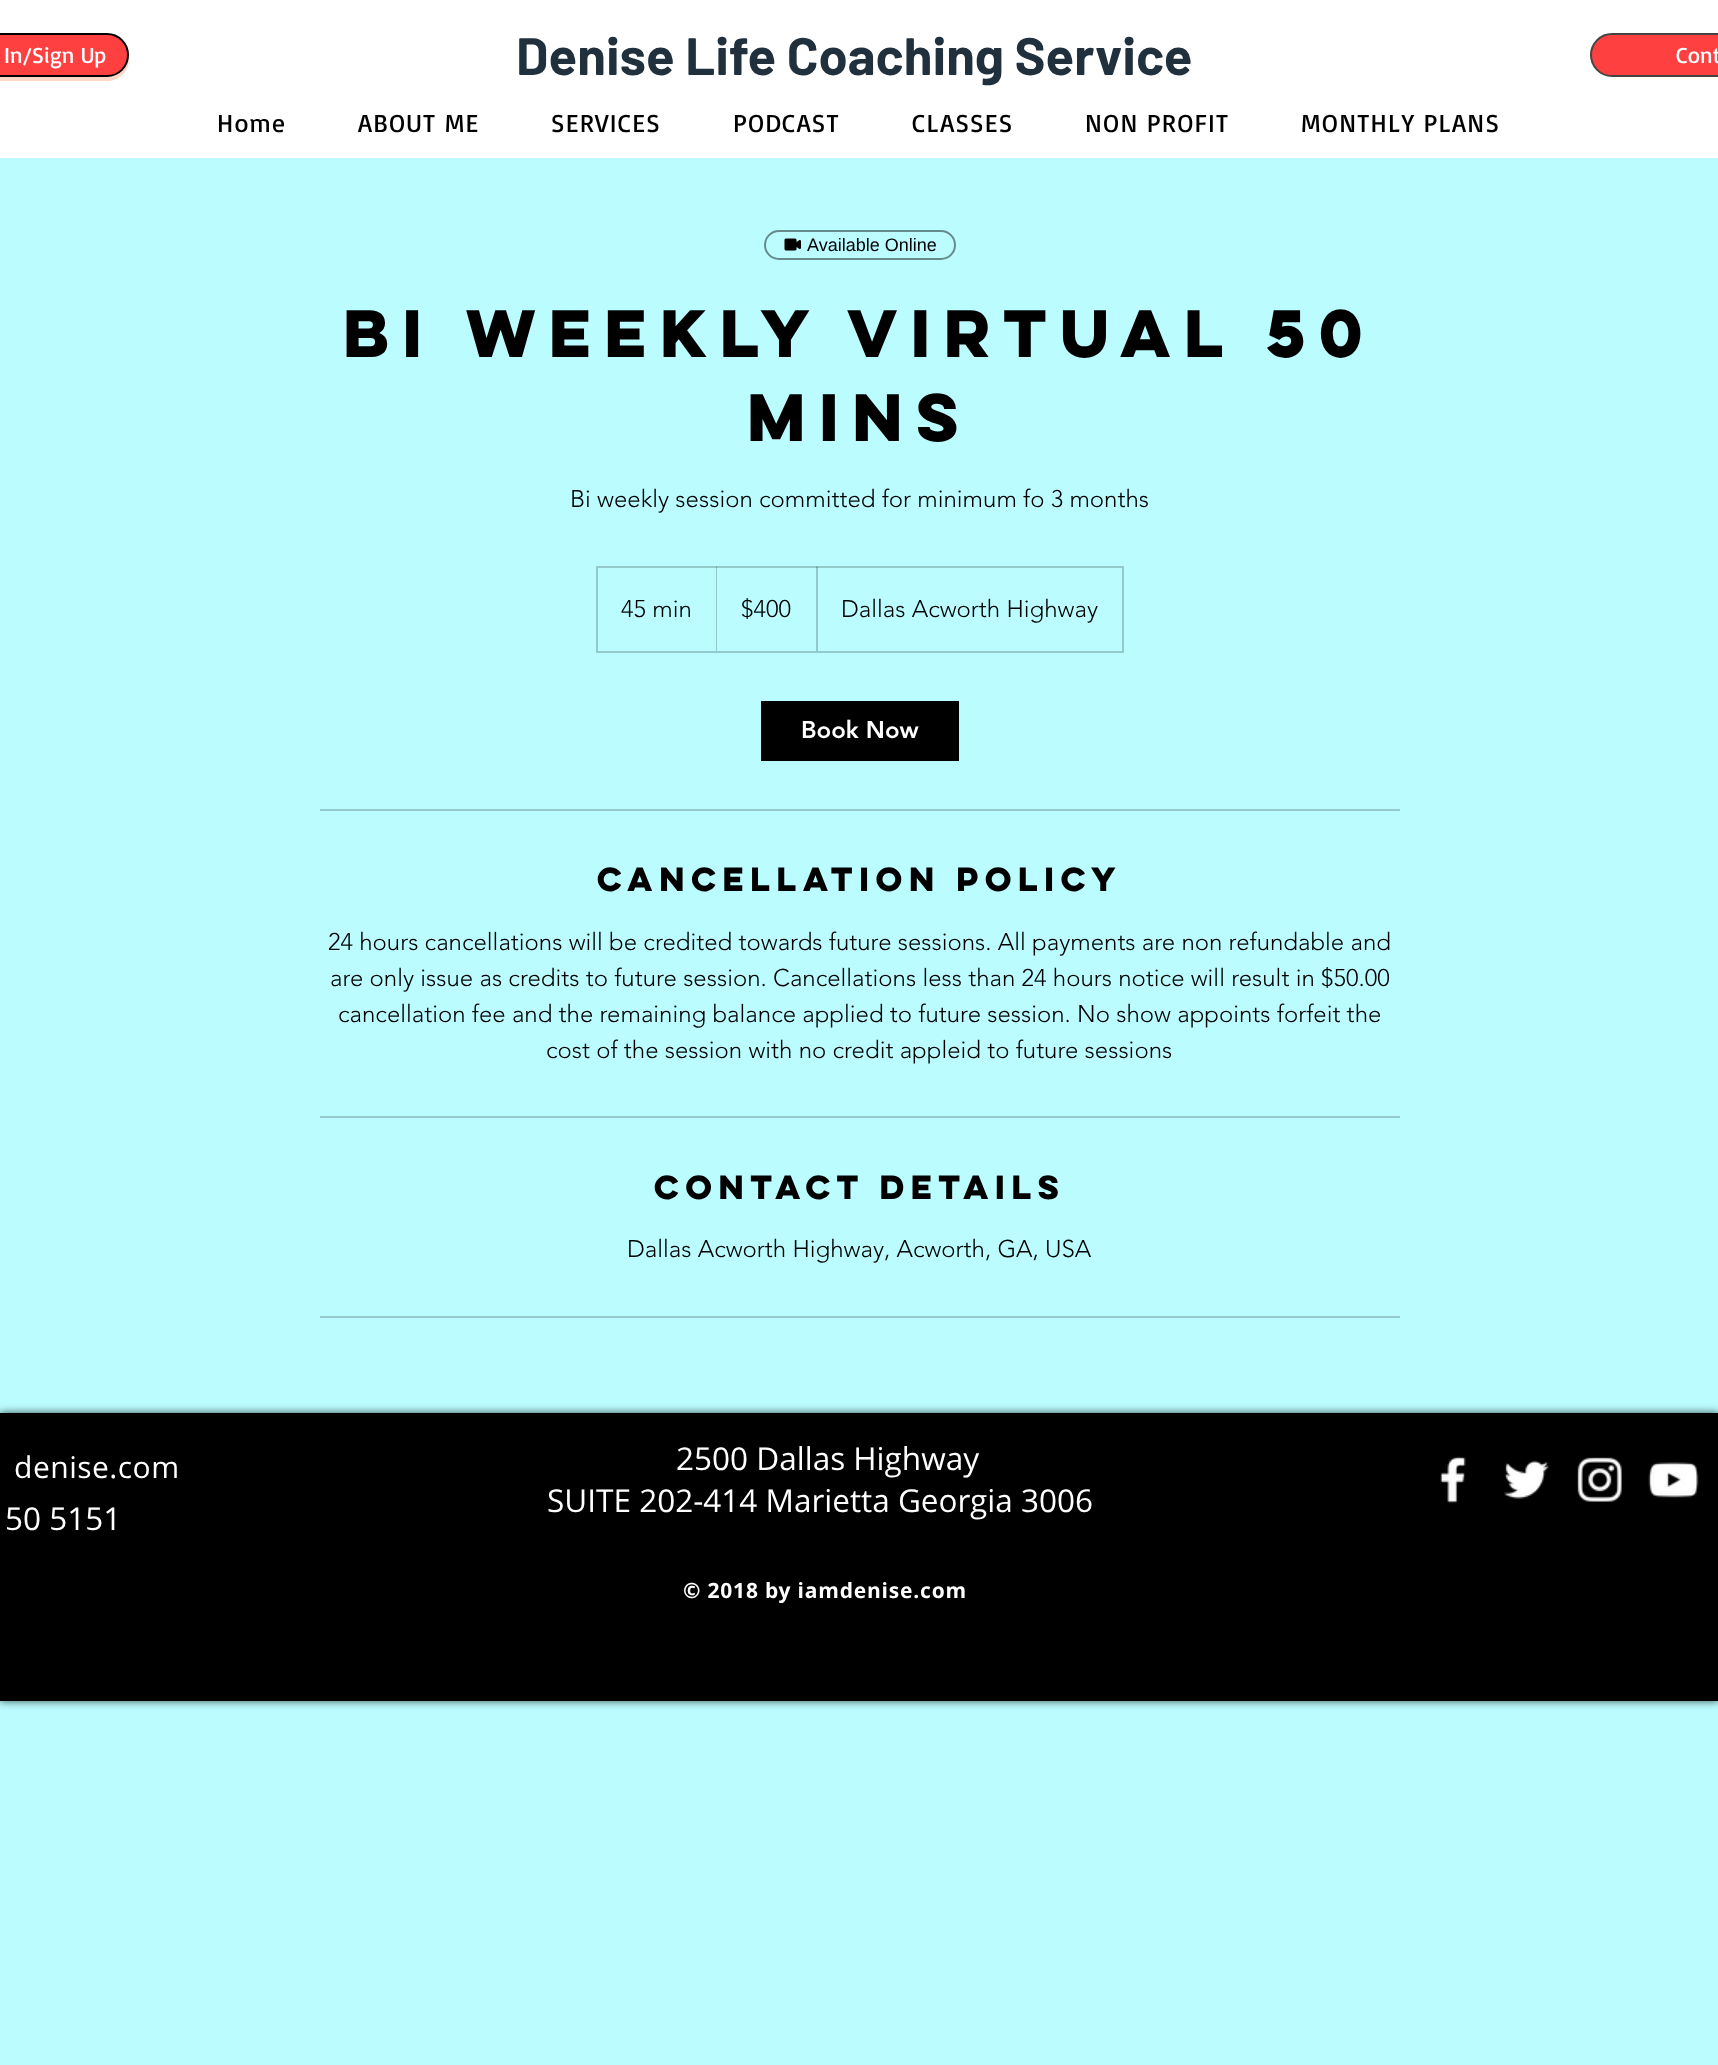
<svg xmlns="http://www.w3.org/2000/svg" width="1718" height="2065">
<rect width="100%" height="100%" fill="#bafcff"/>
<rect width="1718" height="158" fill="#fff"/>
<path d="M-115 59v1c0 11 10 21 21 21h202c11 0 21-10 21-21v-3c-1 11-11 19-22 19h-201c-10 0-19-7-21-17z" fill="#ffd7c8"/>
<rect x="-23" y="34" width="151" height="42" rx="21" fill="#ff4040" stroke="#000" stroke-width="2"/>
<text x="4" y="63" style="font-family:Basic;font-size:22.5px;fill:#fff">In/Sign Up</text>
<text x="516" y="75" style="font-family:Barlow;font-size:52.5px;font-weight:bold;fill:#20303c">Denise Life Coaching Service</text>
<rect x="1591" y="34" width="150" height="42" rx="21" fill="#ff4040" stroke="#444" stroke-width="2"/>
<text x="1676" y="63" style="font-family:Basic;font-size:22.5px;fill:#fff">Cont</text>
<text x="217" y="132" style="font-family:Basic;font-size:25.5px;letter-spacing:1.25px;fill:#000">Home</text>
<text x="358" y="132" style="font-family:Basic;font-size:25.5px;letter-spacing:1.25px;fill:#000">ABOUT ME</text>
<text x="551" y="132" style="font-family:Basic;font-size:25.5px;letter-spacing:1.25px;fill:#000">SERVICES</text>
<text x="733" y="132" style="font-family:Basic;font-size:25.5px;letter-spacing:1.25px;fill:#000">PODCAST</text>
<text x="912" y="132" style="font-family:Basic;font-size:25.5px;letter-spacing:1.25px;fill:#000">CLASSES</text>
<text x="1085" y="132" style="font-family:Basic;font-size:25.5px;letter-spacing:1.25px;fill:#000">NON PROFIT</text>
<text x="1301" y="132" style="font-family:Basic;font-size:25.5px;letter-spacing:1.25px;fill:#000">MONTHLY PLANS</text>
<rect x="765" y="231" width="190" height="28" rx="14" fill="none" stroke="#668b8c" stroke-width="2"/>
<image x="784" y="238" width="17" height="13" href="media/1.png"/>
<text x="807" y="251" style="font-family:Liberation Sans;font-size:18px;fill:#000">Available Online</text>
<text x="343" y="357" style="font-family:'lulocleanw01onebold';font-size:60px;font-weight:bold;fill:#000">BI WEEKLY VIRTUAL</text>
<text x="1266" y="357" style="font-family:'lulocleanw01onebold';font-size:60px;font-weight:bold;fill:#000">50</text>
<text x="747" y="441" style="font-family:'lulocleanw01onebold';font-size:60px;font-weight:bold;fill:#000">MINS</text>
<text x="570" y="507" style="font-family:'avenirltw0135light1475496';font-size:24px;font-weight:300;fill:#000">Bi weekly session committed for minimum fo 3 months</text>
<rect x="597" y="567" width="526" height="85" fill="none" stroke="#95cacc" stroke-width="2"/>
<text x="621" y="617" style="font-family:'avenirltw0135light1475496';font-size:24px;font-weight:300;fill:#000">45 min</text>
<path d="M716 651v-85l1 1v84z" fill="#00000033"/>
<text x="741" y="617" style="font-family:'avenirltw0135light1475496';font-size:24px;font-weight:300;fill:#000">$400</text>
<path d="M816 651v-85l2 1v84z" fill="#00000033"/>
<text x="841" y="617" style="font-family:'avenirltw0135light1475496';font-size:24px;font-weight:300;fill:#000">Dallas Acworth Highway</text>
<rect x="761" y="701" width="198" height="60" fill="#000"/>
<text x="801" y="738" style="font-family:'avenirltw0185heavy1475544';font-size:24px;font-weight:900;fill:#fff">Book Now</text>
<rect x="320" y="809" width="1080" height="2" fill="#95cacc"/>
<text x="597" y="891" style="font-family:'lulocleanw01onebold';font-size:30px;font-weight:bold;fill:#000">Cancellation Policy</text>
<text x="328" y="950" style="font-family:'avenirltw0135light1475496';font-size:24px;font-weight:300;fill:#000">24 hours cancellations will be credited towards future sessions. All payments are non refundable and</text>
<text x="330" y="986" style="font-family:'avenirltw0135light1475496';font-size:24px;font-weight:300;fill:#000">are only issue as credits to future session. Cancellations less than 24 hours notice will result in $50.00</text>
<text x="338" y="1022" style="font-family:'avenirltw0135light1475496';font-size:24px;font-weight:300;fill:#000">cancellation fee and the remaining balance applied to future session. No show appoints forfeit the</text>
<text x="546" y="1058" style="font-family:'avenirltw0135light1475496';font-size:24px;font-weight:300;fill:#000">cost of the session with no credit appleid to future sessions</text>
<rect x="320" y="1116" width="1080" height="2" fill="#95cacc"/>
<text x="654" y="1199" style="font-family:'lulocleanw01onebold';font-size:30px;font-weight:bold;fill:#000">Contact Details</text>
<text x="627" y="1257" style="font-family:'avenirltw0135light1475496';font-size:24px;font-weight:300;fill:#000">Dallas Acworth Highway, Acworth, GA, USA</text>
<rect x="320" y="1316" width="1080" height="2" fill="#95cacc"/>
<rect y="1413" width="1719" height="288" fill="#000000b3" filter="blur(4px)"/>
<rect y="1413" width="1718" height="288" fill="#000"/>
<text x="14" y="1478" style="font-family:Open Sans;font-size:30px;letter-spacing:0.5px;fill:#fff">denise.com</text>
<text x="5" y="1530" style="font-family:Open Sans;font-size:31.5px;fill:#fff">50 5151</text>
<text x="676" y="1470" style="font-family:Open Sans;font-size:31.5px;fill:#fff">2500 Dallas Highway</text>
<text x="547" y="1512" style="font-family:Open Sans;font-size:31.5px;fill:#fff">SUITE 202-414 Marietta Georgia 3006</text>
<image x="1440" y="1456" width="26" height="48" href="media/2.png"/>
<image x="1504" y="1460" width="46" height="39" href="media/3.png"/>
<image x="1577" y="1457" width="45" height="45" href="media/4.png"/>
<image x="1648" y="1462" width="51" height="36" href="media/5.png"/>
<text x="683" y="1598" style="font-family:Open Sans;font-size:21px;font-weight:bold;letter-spacing:0.8px;fill:#fff">© 2018 by iamdenise.com</text>
</svg>
